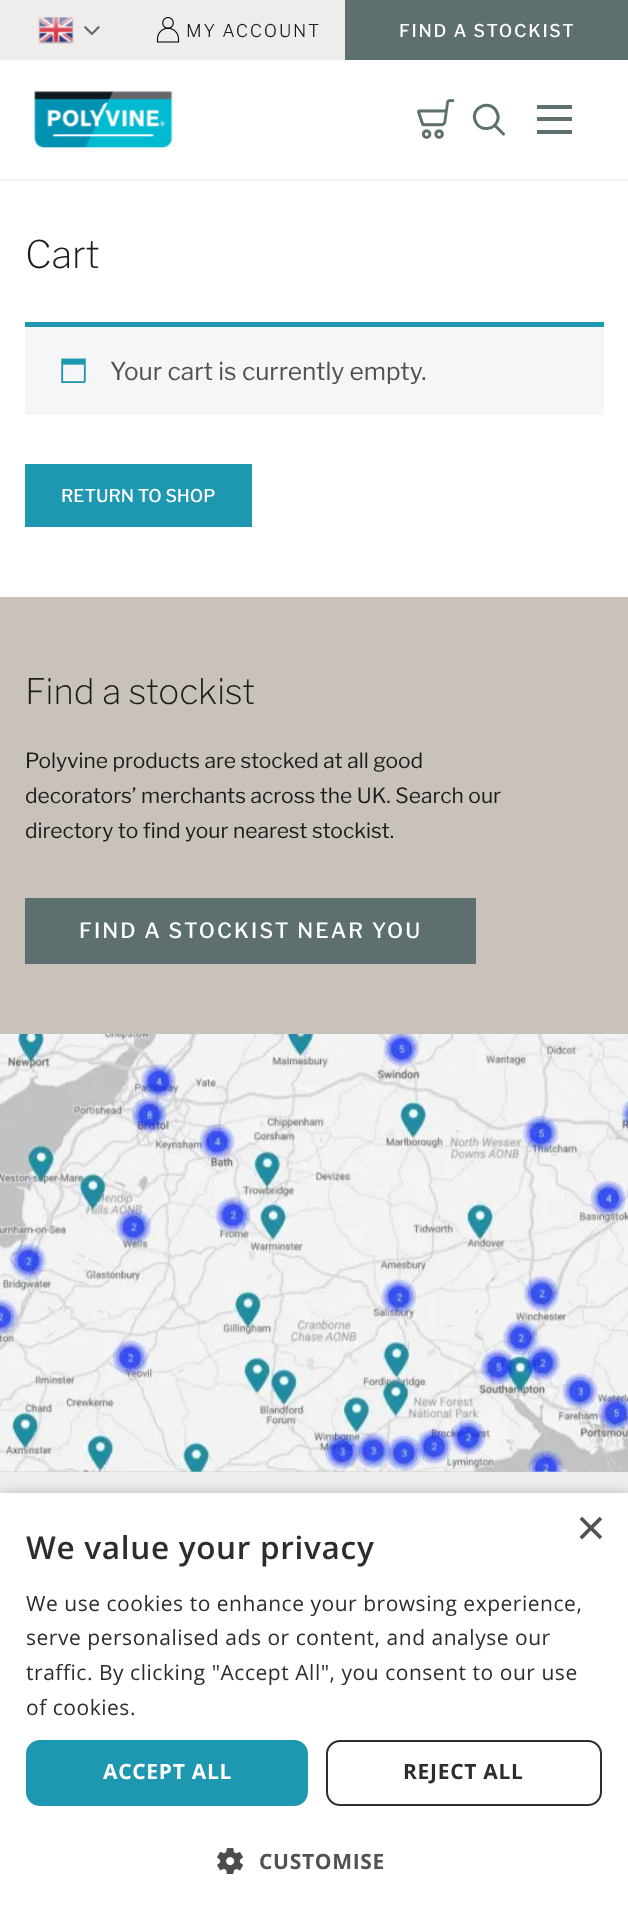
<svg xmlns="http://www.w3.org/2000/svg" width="628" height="1921">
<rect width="100%" height="100%" fill="#fff"/>
<rect y="179" width="628" height="2" fill="#f5f4f4"/>
<rect width="345" height="60" fill="#eeedec"/>
<image x="38" y="17" width="36" height="27" href="media/1.png"/>
<image x="84" y="26" width="16" height="10" href="media/2.png"/>
<image x="156" y="17" width="24" height="26" href="media/3.png"/>
<text x="186" y="37" style="font-family:'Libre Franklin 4';font-size:17.5px;font-weight:100;letter-spacing:1.75px;fill:#1c1c1c">MY ACCOUNT</text>
<rect x="345" width="283" height="60" fill="#5d6f6e"/>
<text x="399" y="37" style="font-family:'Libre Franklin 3';font-size:17.5px;font-weight:100;letter-spacing:1.75px;fill:#fff">FIND A STOCKIST</text>
<image x="34" y="91" width="139" height="58" href="media/4.png"/>
<image x="417" y="99" width="38" height="40" href="media/5.png"/>
<path d="M475.5 121.5c4.5 10.5 20 9 22.5-2.5c.5-2 0-4.5-1-6.5c-6.5-14.5-27.5-5-21.5 9zm19 3.5l9 9" fill="none" stroke="#5d6f6e" stroke-width="3.1" stroke-linecap="round" stroke-linejoin="round"/>
<rect x="537" y="105" width="35" height="4" fill="#5d6f6e"/>
<rect x="537" y="117" width="35" height="4" fill="#5d6f6e"/>
<rect x="537" y="130" width="35" height="4" fill="#5d6f6e"/>
<text x="25" y="268" style="font-family:Libre Franklin;font-size:38px;font-weight:100;fill:#1c1c1c">Cart</text>
<rect x="25" y="327" width="579" height="88" fill="#f6f5f8"/>
<rect x="25" y="322" width="579" height="5" fill="#1e97b0"/>
<image x="61" y="358" width="25" height="25" href="media/6.png"/>
<text x="110" y="380" style="font-family:'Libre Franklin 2';font-size:24.5px;font-weight:100;fill:#515151">Your cart is currently empty.</text>
<rect x="25" y="464" width="227" height="63" fill="#1e97b0"/>
<text x="61" y="502" style="font-family:'Libre Franklin 3';font-size:17.5px;font-weight:100;fill:#fff">RETURN TO SHOP</text>
<rect y="597" width="628" height="875" fill="#c8c2ba"/>
<text x="25" y="704" style="font-family:Libre Franklin;font-size:35px;font-weight:100;fill:#1c1c1c">Find a stockist</text>
<text x="25" y="768" style="font-family:'Libre Franklin 2';font-size:21px;font-weight:100;fill:#1c1c1c">Polyvine products are stocked at all good</text>
<text x="25" y="803" style="font-family:'Libre Franklin 2';font-size:21px;font-weight:100;fill:#1c1c1c">decorators’ merchants across the UK. Search our</text>
<text x="25" y="838" style="font-family:'Libre Franklin 2';font-size:21px;font-weight:100;fill:#1c1c1c">directory to find your nearest stockist.</text>
<rect x="25" y="898" width="451" height="66" fill="#5d6f6e"/>
<text x="79" y="938" style="font-family:'Libre Franklin 3';font-size:21px;font-weight:100;letter-spacing:2.1px;fill:#fff">FIND A STOCKIST NEAR YOU</text>
<image x="0" y="1034" width="628" height="438" href="media/7.png"/>
<rect y="1472" width="628" height="21" fill="#eeedec"/>
<rect x="2" y="1496" width="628" height="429" fill="#00000059" filter="blur(7px)"/>
<rect y="1493" width="628" height="428" fill="#fff"/>
<text x="576" y="1545" style="font-family:Liberation Sans;font-size:51px;fill:#515151">×</text>
<text x="26" y="1559" style="font-family:Open Sans;font-size:31.5px;font-weight:600;letter-spacing:0.7px;fill:#2d2d2d">We value your privacy</text>
<text x="26" y="1611" style="font-family:Open Sans;font-size:21px;letter-spacing:0.53px;fill:#2d2d2d">We use cookies to enhance your browsing experience,</text>
<text x="26" y="1645" style="font-family:Open Sans;font-size:21px;letter-spacing:0.53px;fill:#2d2d2d">serve personalised ads or content, and analyse our</text>
<text x="26" y="1680" style="font-family:Open Sans;font-size:21px;letter-spacing:0.53px;fill:#2d2d2d">traffic. By clicking "Accept All", you consent to our use</text>
<text x="26" y="1715" style="font-family:Open Sans;font-size:21px;letter-spacing:0.53px;fill:#2d2d2d">of cookies.</text>
<rect x="26" y="1740" width="282" height="66" rx="14" fill="#1e97b0"/>
<text x="103" y="1779" style="font-family:Open Sans;font-size:21px;font-weight:bold;letter-spacing:0.7px;fill:#fff">ACCEPT ALL</text>
<rect x="327" y="1741" width="274" height="64" rx="13" fill="none" stroke="#2d2d2d" stroke-width="2"/>
<text x="403" y="1779" style="font-family:Open Sans;font-size:21px;font-weight:bold;letter-spacing:0.7px;fill:#2d2d2d">REJECT ALL</text>
<image x="217" y="1848" width="26" height="26" href="media/8.png"/>
<text x="259" y="1869" style="font-family:Open Sans;font-size:21px;font-weight:bold;letter-spacing:0.7px;fill:#515151">CUSTOMISE</text>
</svg>
